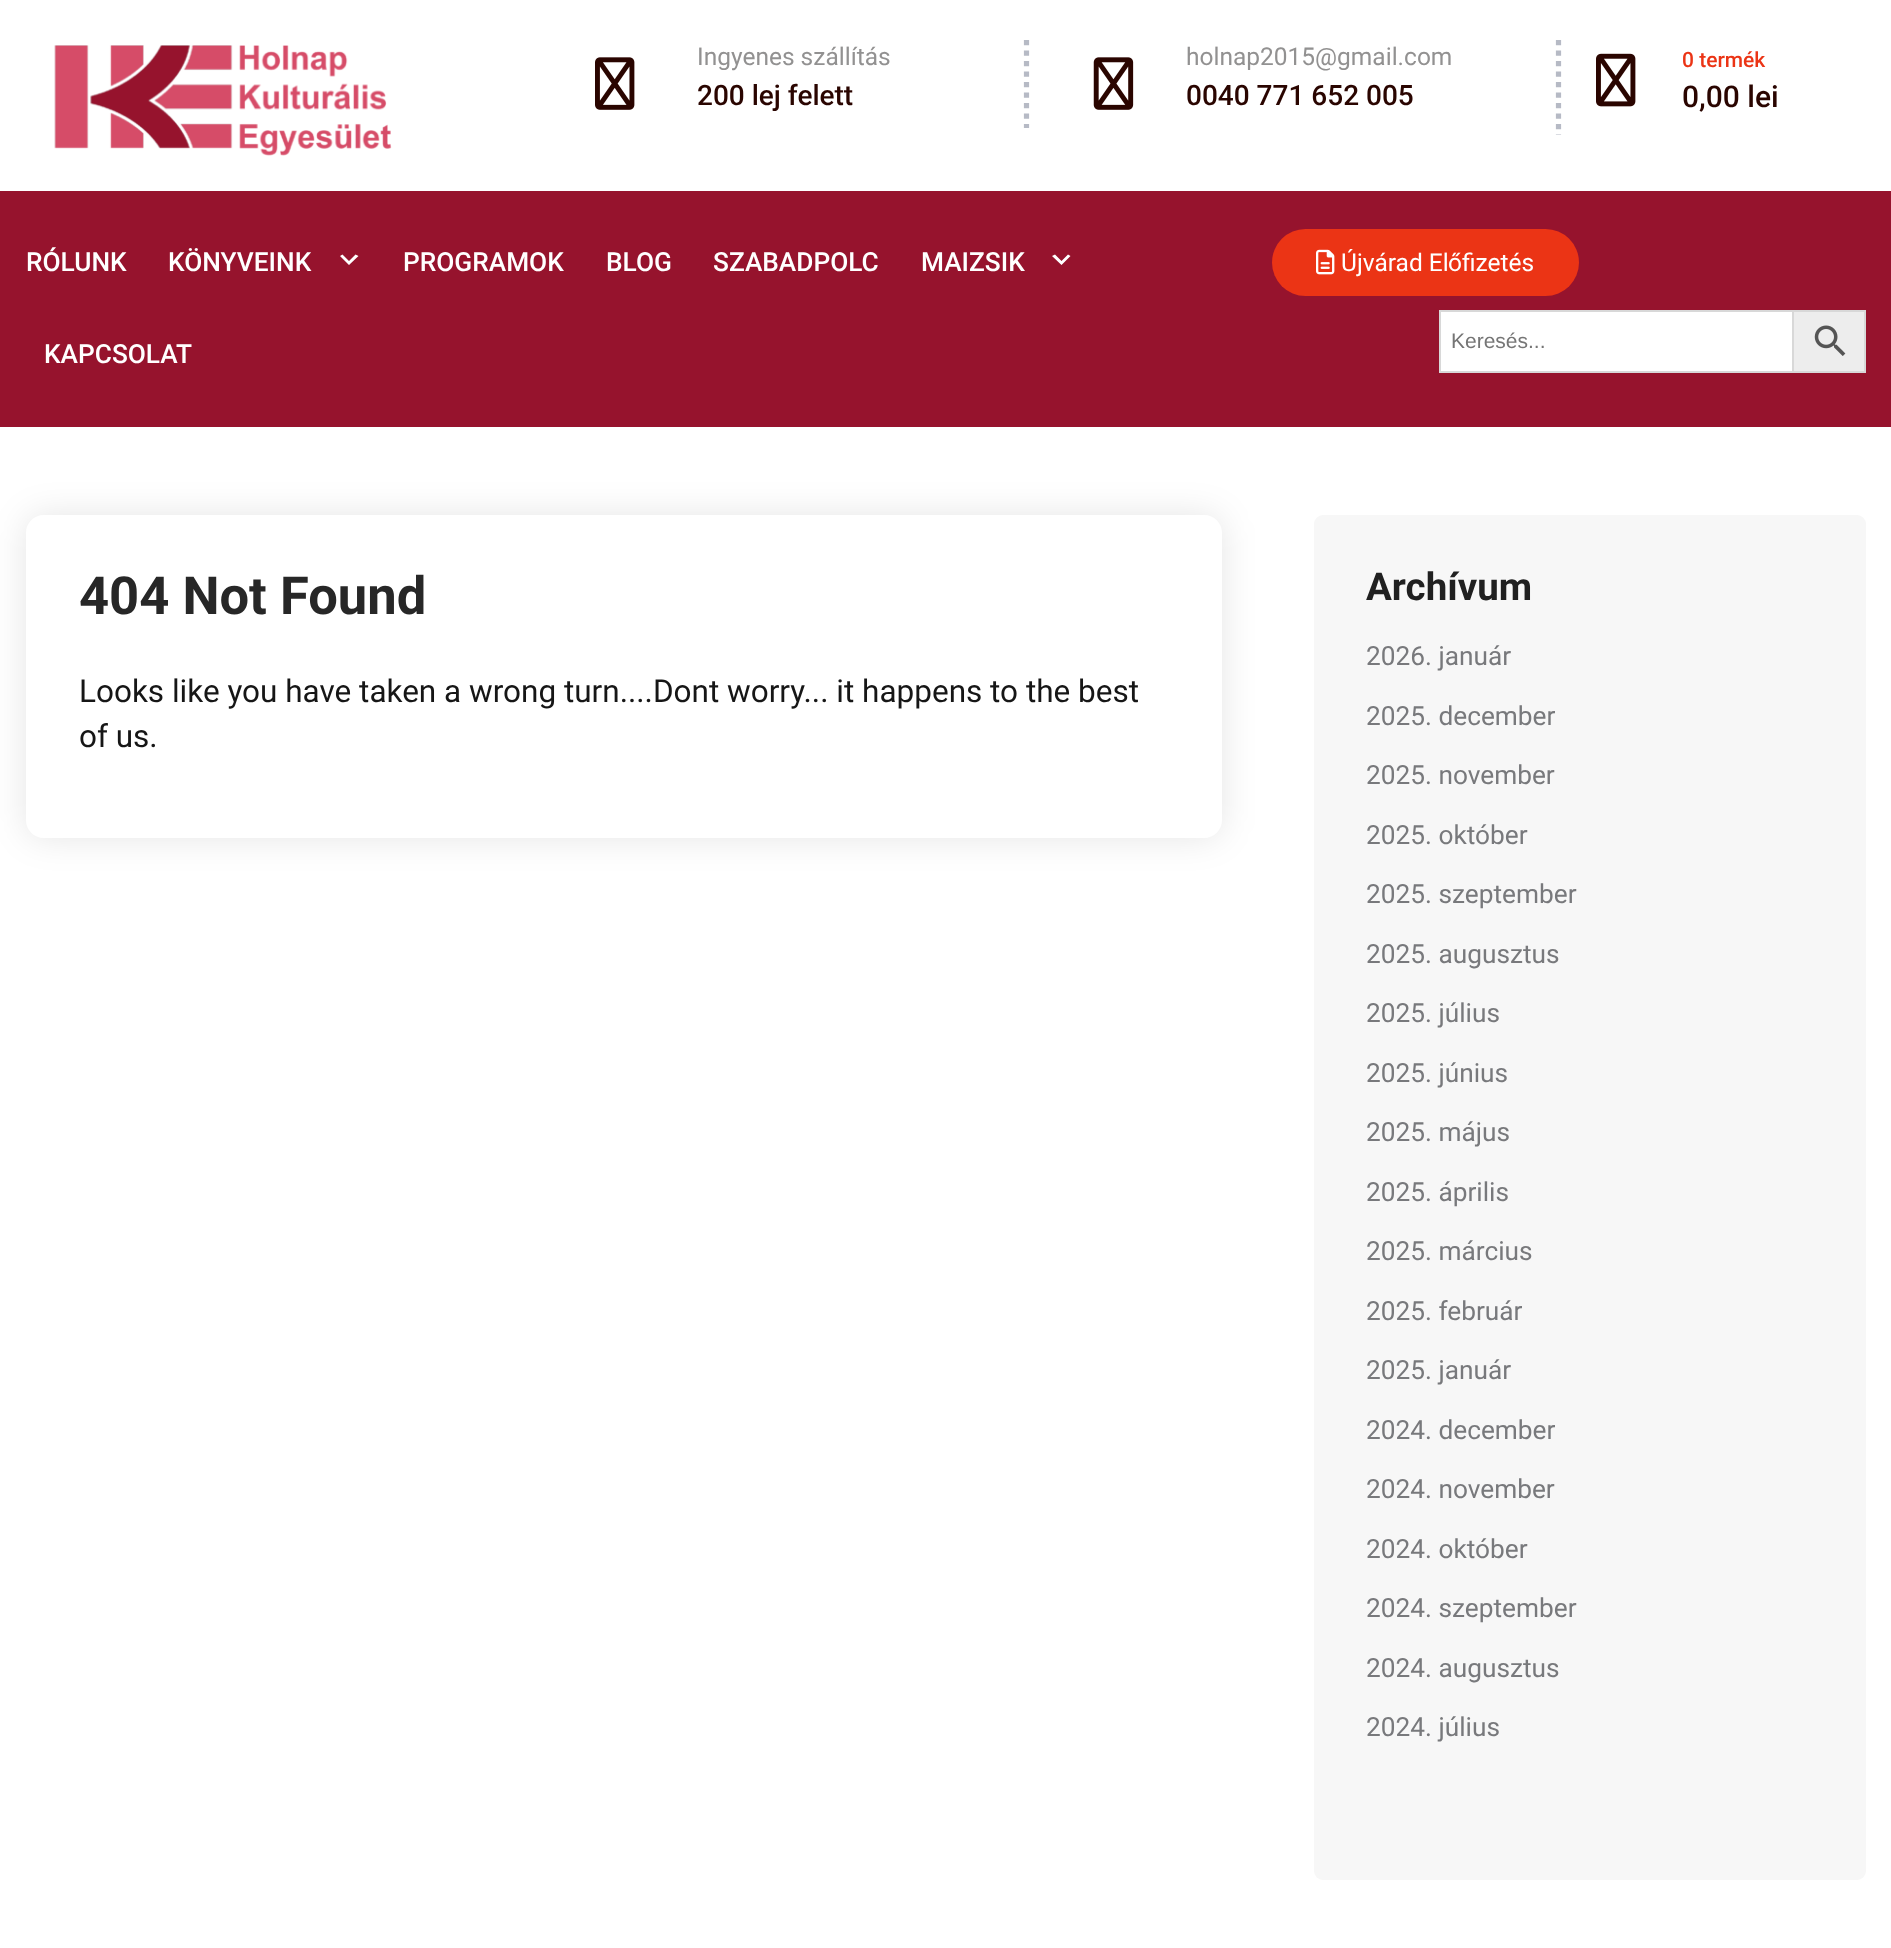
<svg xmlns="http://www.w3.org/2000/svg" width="1891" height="1948">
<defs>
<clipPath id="clip1"><path d="M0 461h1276v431h-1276zm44 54h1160c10 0 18 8 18 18v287c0 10-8 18-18 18h-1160c-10 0-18-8-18-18v-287c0-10 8-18 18-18z" clip-rule="evenodd"/></clipPath>
</defs>
<rect width="100%" height="100%" fill="#fff"/>
<rect y="191" width="1891" height="236" fill="#96132d"/>
<image x="54" y="45" width="338" height="111" href="media/1.png"/>
<path d="M1026.5 40v88" fill="none" stroke="#b6bac5" stroke-width="5.2" stroke-dasharray="5.25 5.25"/>
<image x="595" y="57" width="40" height="53" href="media/2.png"/>
<text x="697" y="65" style="font-family:Roboto;font-size:24.5px;fill:#929191">Ingyenes szállítás</text>
<text x="697" y="105" style="font-family:Roboto;font-size:28px;font-weight:500;fill:#2a0500">200 lej felett</text>
<image x="1093" y="57" width="41" height="53" href="media/3.png"/>
<text x="1186" y="65" style="font-family:Roboto;font-size:24.5px;fill:#929191">holnap2015@gmail.com</text>
<text x="1186" y="105" style="font-family:Roboto;font-size:28px;font-weight:500;fill:#2a0500">0040 771 652 005</text>
<path d="M1558.5 40v95" fill="none" stroke="#b6bac5" stroke-width="5.2" stroke-dasharray="5.25 5.25"/>
<image x="1596" y="53" width="40" height="54" href="media/4.png"/>
<text x="1682" y="67" style="font-family:Roboto;font-size:21px;font-weight:500;fill:#eb3415">0 termék</text>
<text x="1682" y="107" style="font-family:Roboto;font-size:30px;font-weight:500;fill:#2a0500">0,00 lei</text>
<text x="26" y="271" style="font-family:Roboto;font-size:26.25px;font-weight:500;fill:#fff">RÓLUNK</text>
<text x="168" y="271" style="font-family:Roboto;font-size:26.25px;font-weight:500;fill:#fff">KÖNYVEINK</text>
<path d="M342.5 254.5l6.5 6.5l6.5-6.5l3 1.5l-9.5 9l-9-9z" fill="#fff"/>
<text x="403" y="271" style="font-family:Roboto;font-size:26.25px;font-weight:500;fill:#fff">PROGRAMOK</text>
<text x="606" y="271" style="font-family:Roboto;font-size:26.25px;font-weight:500;fill:#fff">BLOG</text>
<text x="713" y="271" style="font-family:Roboto;font-size:26.25px;font-weight:500;fill:#fff">SZABADPOLC</text>
<text x="921" y="271" style="font-family:Roboto;font-size:26.25px;font-weight:500;fill:#fff">MAIZSIK</text>
<path d="M1055 254.5l6.5 6.5l6.5-6.5l2.5 1.5l-9 9l-9.5-9z" fill="#fff"/>
<text x="44" y="363" style="font-family:Roboto;font-size:26.25px;font-weight:500;fill:#fff">KAPCSOLAT</text>
<rect x="1272" y="229" width="307" height="67" rx="33.5" fill="#eb3415"/>
<image x="1316" y="249" width="19" height="26" href="media/5.png"/>
<text x="1341" y="271" style="font-family:Roboto;font-size:24.5px;fill:#fff">Újvárad El</text>
<text x="1448" y="271" style="font-family:'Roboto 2';font-size:24.5px;fill:#fff">ő</text>
<text x="1462" y="271" style="font-family:Roboto;font-size:24.5px;fill:#fff">fizetés</text>
<rect x="1793" y="311" width="72" height="61" fill="#ededed" stroke="#d8d8d8" stroke-width="2"/>
<rect x="1440" y="311" width="353" height="61" fill="#fff" stroke="#d8d8d8" stroke-width="2"/>
<text x="1451" y="348" style="font-family:Liberation Sans;font-size:21px;fill:#757575">Keresés...</text>
<image x="1814" y="325" width="32" height="31" href="media/6.png"/>
<g clip-path="url(#clip1)">
<rect x="26" y="515" width="1196" height="323" rx="18" fill="#0000001a" filter="blur(17.5px)"/>
</g>
<text x="79" y="614" style="font-family:Roboto;font-size:52.5px;font-weight:bold;fill:#272727">404 Not Found</text>
<text x="79" y="702" style="font-family:Roboto;font-size:31.5px;fill:#161616">Looks like you have taken a wrong turn....Dont worry... it happens to the best</text>
<text x="79" y="747" style="font-family:Roboto;font-size:31.5px;fill:#161616">of us.</text>
<rect x="1314" y="515" width="552" height="1365" rx="9" fill="#f7f7f7"/>
<text x="1366" y="600" style="font-family:Roboto;font-size:38.5px;font-weight:bold;fill:#202020">Archívum</text>
<text x="1366" y="665" style="font-family:Roboto;font-size:26.25px;fill:#78797c">2026. január</text>
<text x="1366" y="725" style="font-family:Roboto;font-size:26.25px;fill:#78797c">2025. december</text>
<text x="1366" y="784" style="font-family:Roboto;font-size:26.25px;fill:#78797c">2025. november</text>
<text x="1366" y="844" style="font-family:Roboto;font-size:26.25px;fill:#78797c">2025. október</text>
<text x="1366" y="903" style="font-family:Roboto;font-size:26.25px;fill:#78797c">2025. szeptember</text>
<text x="1366" y="963" style="font-family:Roboto;font-size:26.25px;fill:#78797c">2025. augusztus</text>
<text x="1366" y="1022" style="font-family:Roboto;font-size:26.25px;fill:#78797c">2025. július</text>
<text x="1366" y="1082" style="font-family:Roboto;font-size:26.25px;fill:#78797c">2025. június</text>
<text x="1366" y="1141" style="font-family:Roboto;font-size:26.25px;fill:#78797c">2025. május</text>
<text x="1366" y="1201" style="font-family:Roboto;font-size:26.25px;fill:#78797c">2025. április</text>
<text x="1366" y="1260" style="font-family:Roboto;font-size:26.25px;fill:#78797c">2025. március</text>
<text x="1366" y="1320" style="font-family:Roboto;font-size:26.25px;fill:#78797c">2025. február</text>
<text x="1366" y="1379" style="font-family:Roboto;font-size:26.25px;fill:#78797c">2025. január</text>
<text x="1366" y="1439" style="font-family:Roboto;font-size:26.25px;fill:#78797c">2024. december</text>
<text x="1366" y="1498" style="font-family:Roboto;font-size:26.25px;fill:#78797c">2024. november</text>
<text x="1366" y="1558" style="font-family:Roboto;font-size:26.25px;fill:#78797c">2024. október</text>
<text x="1366" y="1617" style="font-family:Roboto;font-size:26.25px;fill:#78797c">2024. szeptember</text>
<text x="1366" y="1677" style="font-family:Roboto;font-size:26.25px;fill:#78797c">2024. augusztus</text>
<text x="1366" y="1736" style="font-family:Roboto;font-size:26.25px;fill:#78797c">2024. július</text>
</svg>
